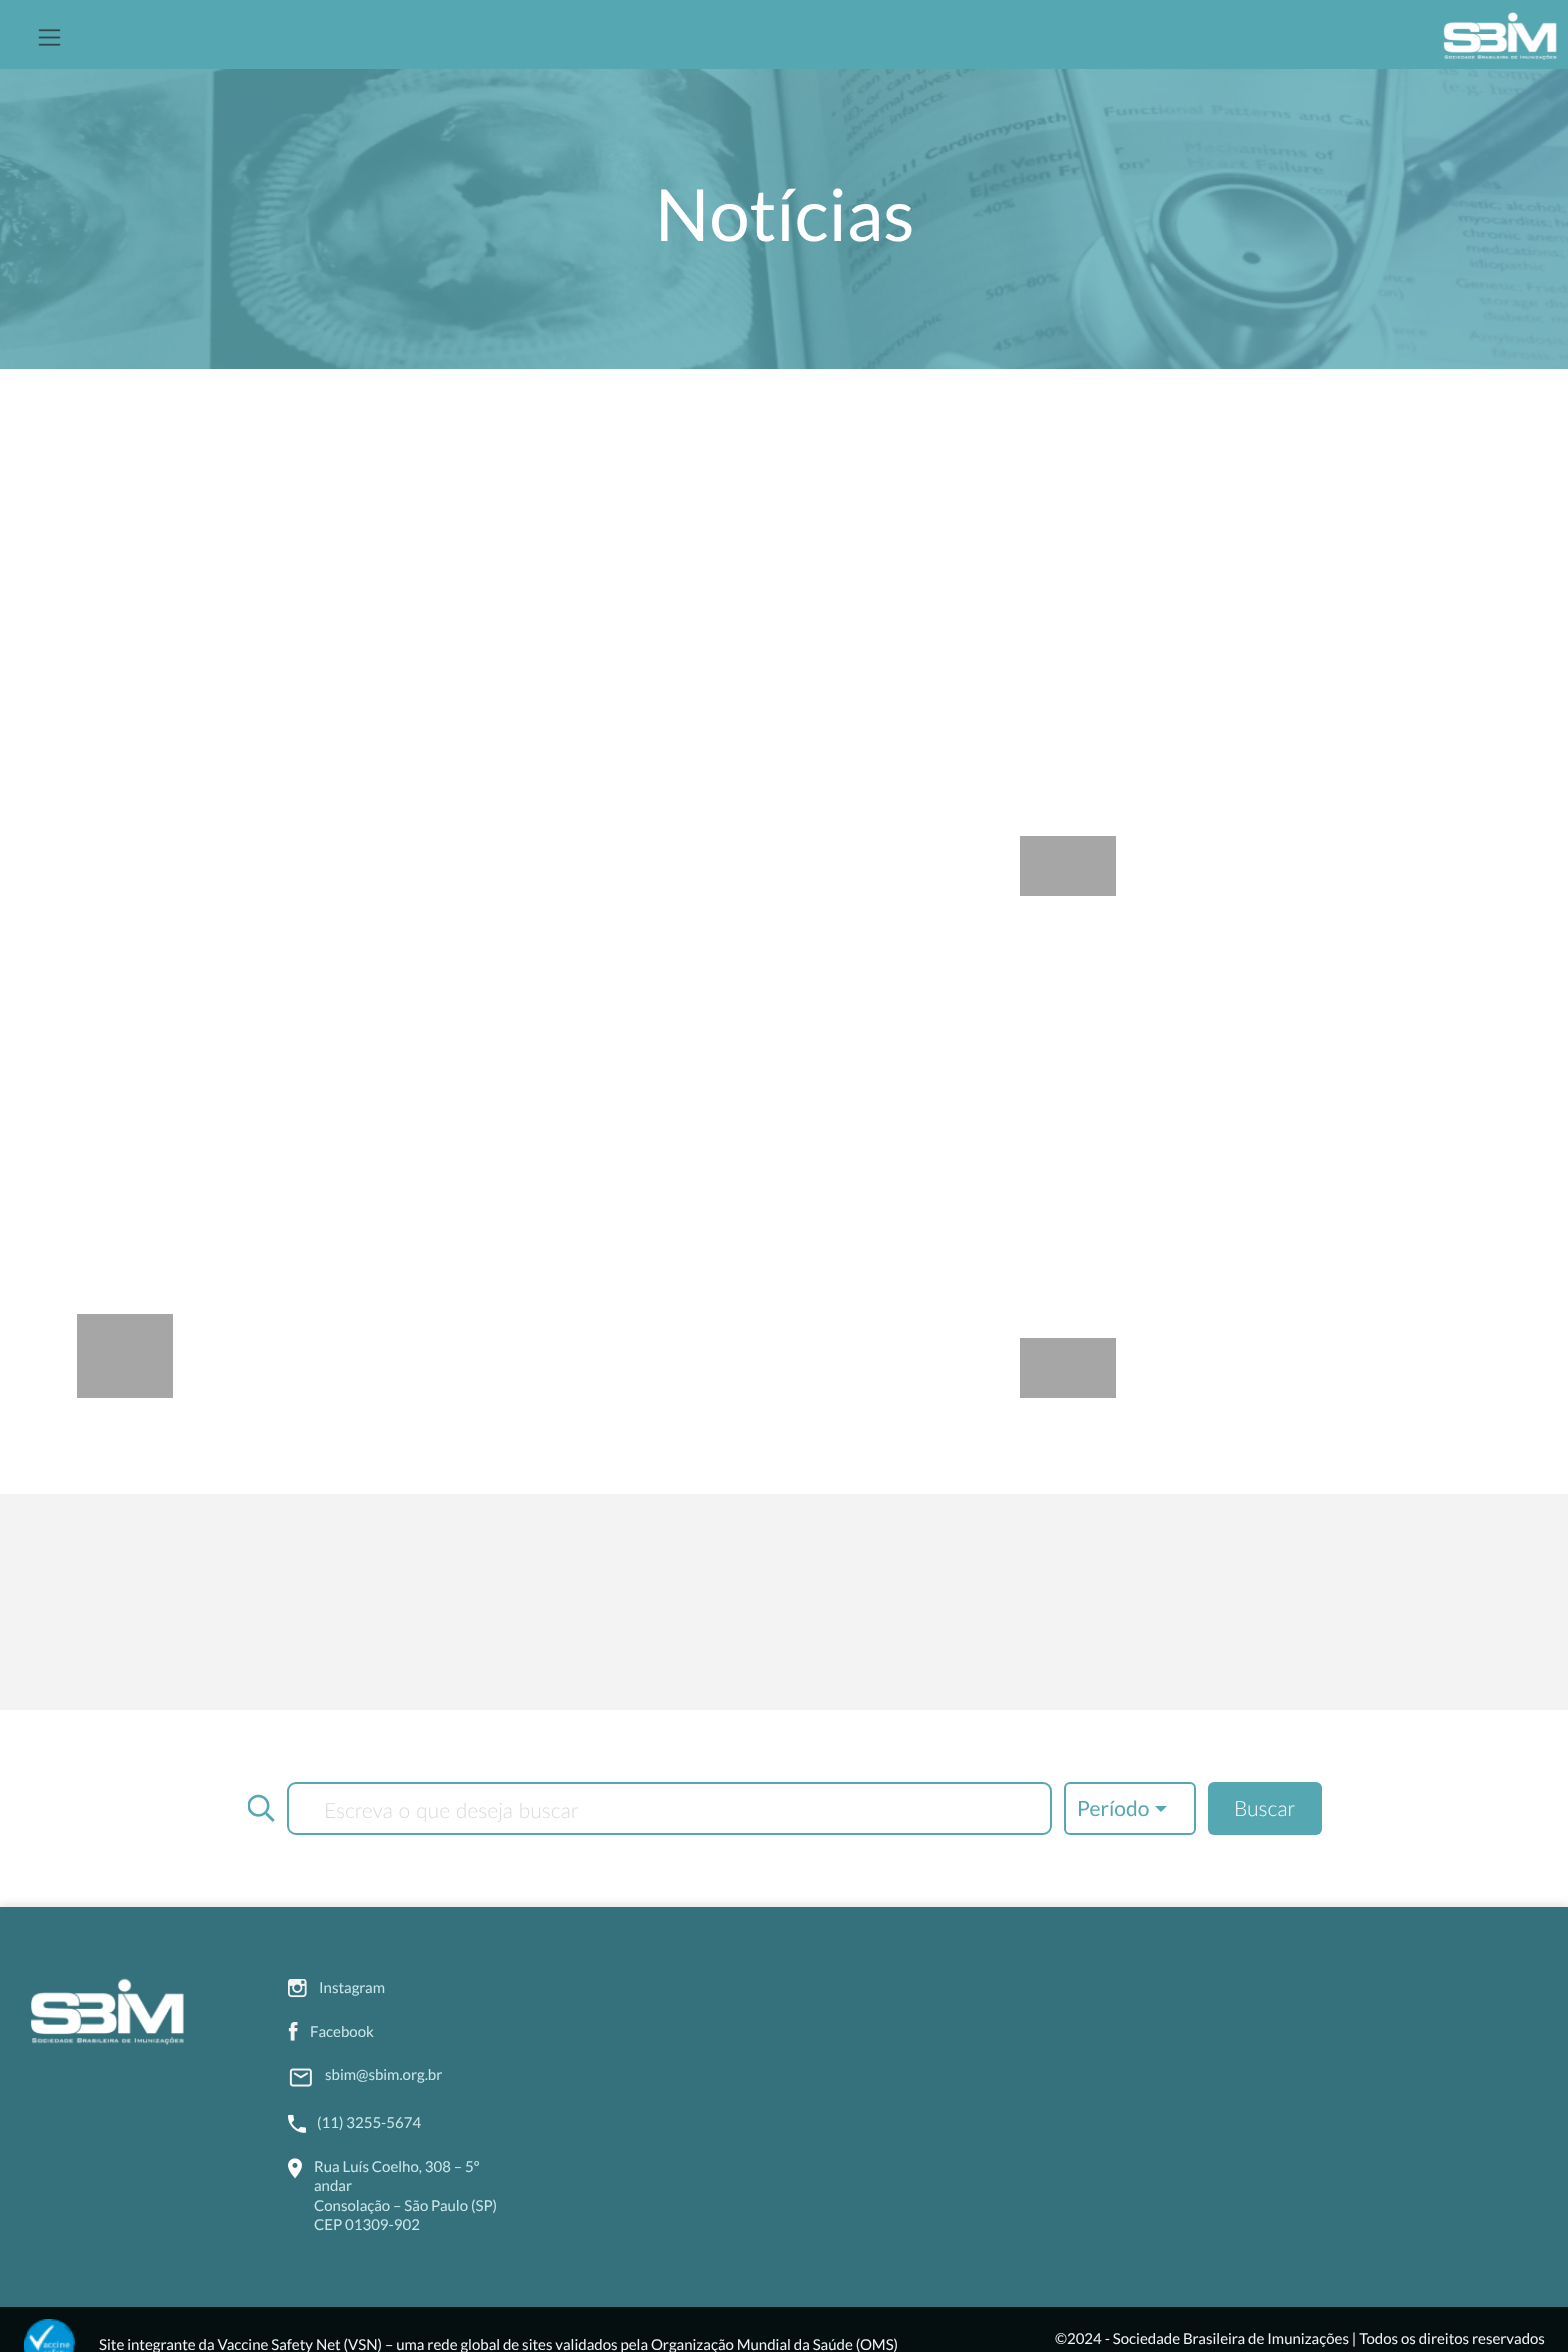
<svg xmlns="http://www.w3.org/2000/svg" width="1568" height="2352">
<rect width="100%" height="100%" fill="#fff"/>
<rect width="1568" height="69" fill="#55a7b2"/>
<image x="38" y="29" width="23" height="17" href="media/1.png"/>
<image x="1443" y="12" width="114" height="48" href="media/2.png"/>
<image x="0" y="69" width="1568" height="300" href="media/3.png"/>
<text x="655" y="241" style="font-family:Lato;font-size:72px;fill:#fff">Notícias</text>
<rect x="77" y="1314" width="96" height="84" fill="#a6a6a6"/>
<rect x="1020" y="836" width="96" height="60" fill="#a6a6a6"/>
<rect x="1020" y="1338" width="96" height="60" fill="#a6a6a6"/>
<rect y="1494" width="1568" height="216" fill="#f3f3f3"/>
<image x="248" y="1794" width="27" height="28" href="media/4.png"/>
<rect x="288" y="1783" width="763" height="51" rx="8" fill="none" stroke="#55a7b2" stroke-width="2"/>
<text x="324" y="1818" style="font-family:Lato;font-size:21px;font-weight:300;fill:#dadada">Escreva o que deseja buscar</text>
<rect x="1065" y="1783" width="130" height="51" rx="5" fill="none" stroke="#55a7b2" stroke-width="2"/>
<text x="1077" y="1816" style="font-family:Lato;font-size:21px;fill:#55a7b2">Período</text>
<path d="M1155 1806h12l-6 6z" fill="#55a7b2"/>
<rect x="1208" y="1782" width="114" height="53" rx="6" fill="#55a7b2"/>
<text x="1234" y="1816" style="font-family:Lato;font-size:21px;font-weight:300;fill:#fff">Buscar</text>
<rect y="1904" width="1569" height="400" fill="#0000001a" filter="blur(4px)"/>
<rect y="1907" width="1568" height="400" fill="#34717c"/>
<image x="31" y="1978" width="153" height="67" href="media/5.png"/>
<image x="288" y="1979" width="19" height="19" href="media/6.png"/>
<text x="319" y="1993" style="font-family:Lato;font-size:15px;fill:#cbe7e9">Instagram</text>
<image x="288" y="2022" width="10" height="19" href="media/7.png"/>
<text x="310" y="2037" style="font-family:Lato;font-size:15px;fill:#cbe7e9">Facebook</text>
<image x="289" y="2068" width="23" height="19" href="media/8.png"/>
<text x="325" y="2080" style="font-family:Lato;font-size:15px;fill:#cbe7e9">sbim@sbim.org.br</text>
<image x="288" y="2114" width="18" height="19" href="media/9.png"/>
<text x="317" y="2128" style="font-family:Lato;font-size:15px;fill:#cbe7e9">(11) 3255-5674</text>
<image x="288" y="2158" width="14" height="21" href="media/10.png"/>
<text x="314" y="2172" style="font-family:Lato;font-size:15px;fill:#cbe7e9">Rua Luís Coelho, 308 – 5º</text>
<text x="314" y="2191" style="font-family:Lato;font-size:15px;fill:#cbe7e9">andar</text>
<text x="314" y="2211" style="font-family:Lato;font-size:15px;fill:#cbe7e9">Consolação – São Paulo (SP)</text>
<text x="314" y="2230" style="font-family:Lato;font-size:15px;fill:#cbe7e9">CEP 01309-902</text>
<rect y="2307" width="1568" height="45" fill="#060f10"/>
<image x="24" y="2319" width="51" height="33" href="media/11.png"/>
<text x="99" y="2350" style="font-family:Lato;font-size:15px;fill:#f3f3f3">Site integrante da Vaccine Safety Net (VSN) – uma rede global de sites validados pela Organização Mundial da Saúde (OMS)</text>
<text x="1055" y="2344" style="font-family:Lato;font-size:15px;fill:#f3f3f3">©2024 - Sociedade Brasileira de Imunizações | Todos os direitos reservados</text>
</svg>
